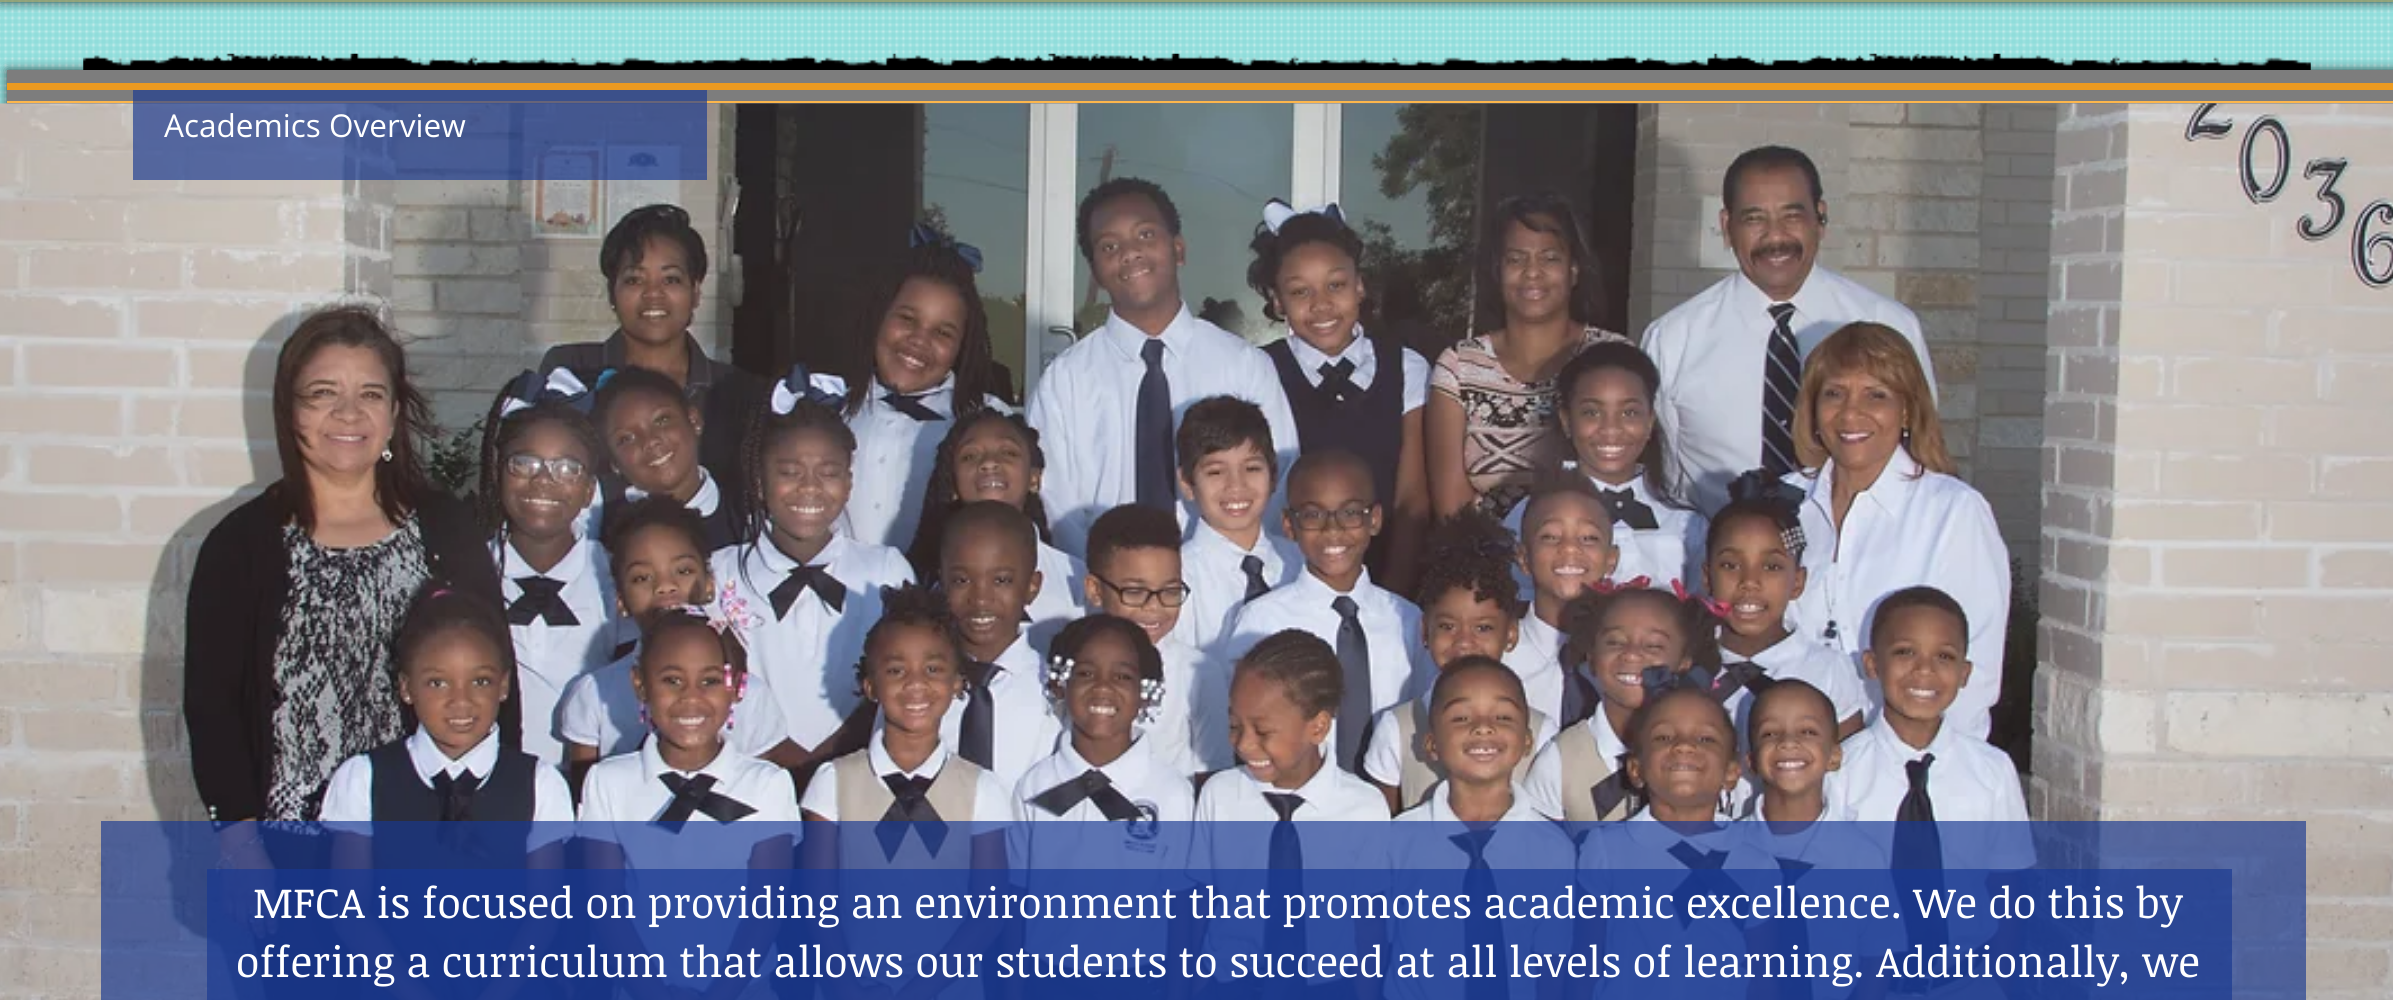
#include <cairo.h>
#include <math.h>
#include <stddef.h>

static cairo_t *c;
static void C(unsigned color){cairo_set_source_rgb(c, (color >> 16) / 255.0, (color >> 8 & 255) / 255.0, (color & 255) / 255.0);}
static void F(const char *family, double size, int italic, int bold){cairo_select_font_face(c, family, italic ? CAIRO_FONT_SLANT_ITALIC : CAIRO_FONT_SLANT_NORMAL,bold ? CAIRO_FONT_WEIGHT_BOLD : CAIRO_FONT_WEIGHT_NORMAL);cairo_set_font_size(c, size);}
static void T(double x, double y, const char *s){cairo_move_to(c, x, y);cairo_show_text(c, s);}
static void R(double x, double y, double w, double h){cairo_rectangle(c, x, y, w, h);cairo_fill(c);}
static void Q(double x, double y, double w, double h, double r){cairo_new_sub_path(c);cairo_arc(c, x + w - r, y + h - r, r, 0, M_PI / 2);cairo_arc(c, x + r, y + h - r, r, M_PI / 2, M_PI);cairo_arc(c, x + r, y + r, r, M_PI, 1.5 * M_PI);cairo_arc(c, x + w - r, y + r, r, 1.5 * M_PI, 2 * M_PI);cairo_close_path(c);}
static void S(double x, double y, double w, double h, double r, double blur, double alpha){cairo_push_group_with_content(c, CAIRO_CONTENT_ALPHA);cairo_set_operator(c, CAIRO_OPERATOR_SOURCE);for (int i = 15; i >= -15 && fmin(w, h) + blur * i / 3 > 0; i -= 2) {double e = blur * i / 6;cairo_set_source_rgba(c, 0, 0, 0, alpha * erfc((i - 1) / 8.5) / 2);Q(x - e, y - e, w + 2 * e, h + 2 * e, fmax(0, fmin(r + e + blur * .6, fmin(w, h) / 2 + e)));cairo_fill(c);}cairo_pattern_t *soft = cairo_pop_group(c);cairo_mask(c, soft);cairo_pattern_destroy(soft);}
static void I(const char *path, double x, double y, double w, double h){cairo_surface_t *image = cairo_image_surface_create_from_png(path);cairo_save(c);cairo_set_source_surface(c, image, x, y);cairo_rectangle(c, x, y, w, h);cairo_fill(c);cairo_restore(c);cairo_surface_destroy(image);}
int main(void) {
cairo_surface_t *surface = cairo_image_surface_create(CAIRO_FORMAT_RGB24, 2393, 1000);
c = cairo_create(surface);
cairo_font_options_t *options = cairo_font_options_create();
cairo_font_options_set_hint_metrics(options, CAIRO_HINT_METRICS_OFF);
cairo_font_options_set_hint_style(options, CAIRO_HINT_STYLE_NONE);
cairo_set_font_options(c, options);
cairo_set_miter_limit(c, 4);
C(0x90dddb);
cairo_paint(c);
I("1.png",0,0,2393,104);
cairo_save(c);
cairo_rectangle(c,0,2,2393,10);
cairo_clip(c);
C(0x000000);
S(0,-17,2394,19,0,5.5,.7);
cairo_restore(c);
cairo_set_source_rgba(c,0.565,0.4,0.094,0.49);
R(0,0,2393,2);
I("2.png",83,53,2228,17);
C(0x000000);
S(7,70,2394,94,0,5.5,.7);
C(0x7d7d7d);
R(7,70,2386,34);
C(0xeb9a21);
R(7,83,2386,7);
C(0xfcb64c);
R(7,101,2386,2);
I("3.png",0,103,2393,897);
cairo_set_source_rgba(c,0.094,0.22,0.565,0.65);
R(133,90,574,90);
F("Open Sans",31.5,0,0);
C(0xffffff);
T(164,137,"Academics Overview");
cairo_set_source_rgba(c,0.094,0.22,0.565,0.65);
R(101,821,2205,179);
R(207,869,2025,131);
F("Noticia Text",42.75,0,0);
C(0xffffff);
T(253,918,"MFCA is focused on providing an environment that promotes academic excellence. We do this by");
T(236,977,"offering a curriculum that allows our students to succeed at all levels of learning. Additionally, we");
cairo_surface_write_to_png(surface, "o.png");
cairo_font_options_destroy(options);
cairo_destroy(c);
cairo_surface_destroy(surface);
return 0;
}
